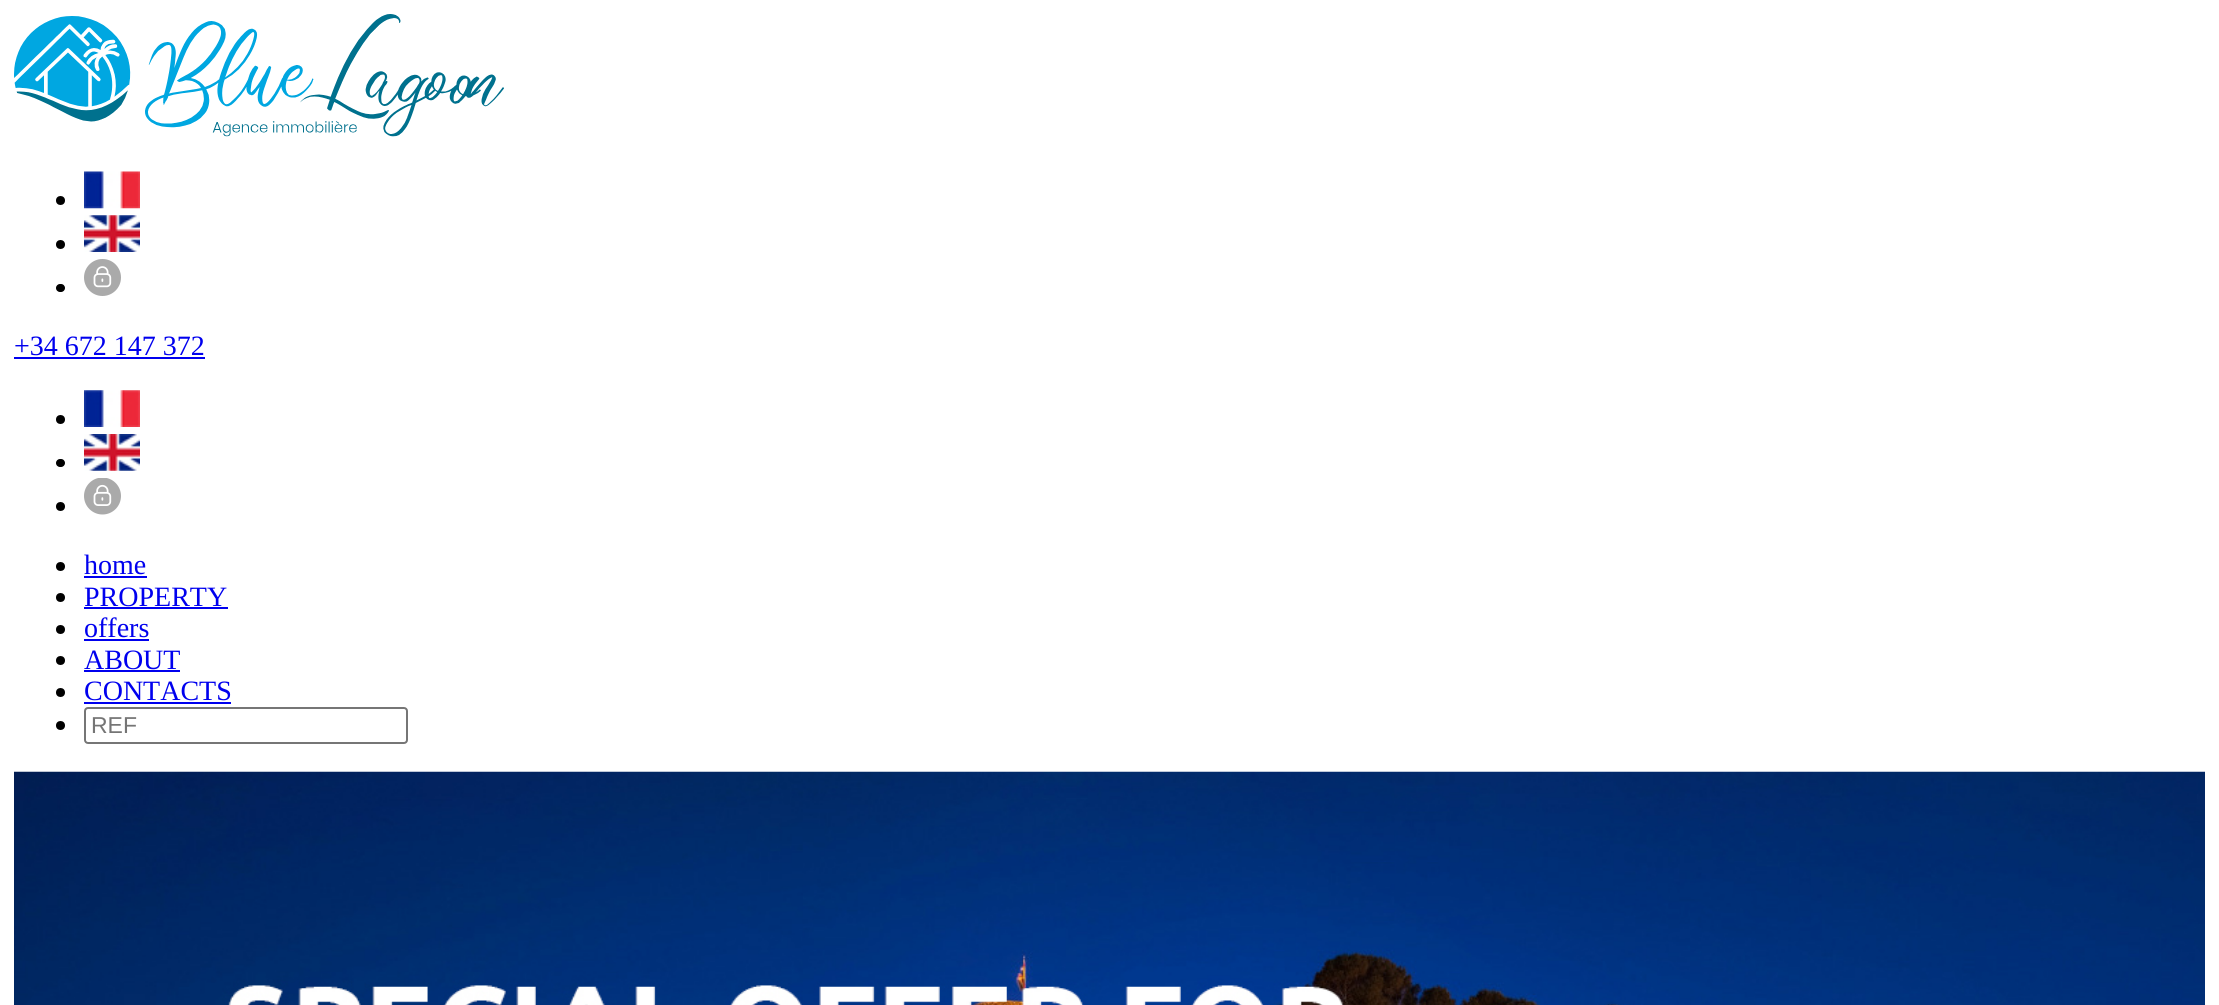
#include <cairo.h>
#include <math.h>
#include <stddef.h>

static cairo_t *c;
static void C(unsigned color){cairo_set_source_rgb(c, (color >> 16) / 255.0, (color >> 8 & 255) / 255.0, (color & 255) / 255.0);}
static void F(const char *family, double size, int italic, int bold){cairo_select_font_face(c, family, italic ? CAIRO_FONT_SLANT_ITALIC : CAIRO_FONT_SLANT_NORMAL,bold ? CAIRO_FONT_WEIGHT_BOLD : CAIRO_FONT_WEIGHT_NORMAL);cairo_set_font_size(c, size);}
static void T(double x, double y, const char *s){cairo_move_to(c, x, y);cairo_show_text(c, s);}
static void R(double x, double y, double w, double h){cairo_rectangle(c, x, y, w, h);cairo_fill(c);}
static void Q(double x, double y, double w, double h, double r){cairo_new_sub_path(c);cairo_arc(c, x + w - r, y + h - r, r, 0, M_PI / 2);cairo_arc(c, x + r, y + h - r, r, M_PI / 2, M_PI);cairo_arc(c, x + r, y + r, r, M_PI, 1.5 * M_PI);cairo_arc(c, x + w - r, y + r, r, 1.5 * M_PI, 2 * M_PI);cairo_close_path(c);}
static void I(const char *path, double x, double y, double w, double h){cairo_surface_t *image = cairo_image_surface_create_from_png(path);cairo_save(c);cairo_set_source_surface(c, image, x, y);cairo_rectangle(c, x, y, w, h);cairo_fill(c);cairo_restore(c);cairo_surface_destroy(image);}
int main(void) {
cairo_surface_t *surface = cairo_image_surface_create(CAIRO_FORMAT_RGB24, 2219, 1005);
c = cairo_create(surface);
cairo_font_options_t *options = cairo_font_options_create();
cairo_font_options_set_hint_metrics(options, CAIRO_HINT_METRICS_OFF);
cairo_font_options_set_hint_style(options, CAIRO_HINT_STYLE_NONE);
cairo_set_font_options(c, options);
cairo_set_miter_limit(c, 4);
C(0xffffff);
cairo_paint(c);
I("1.png",14,14,490,123);
C(0x000000);
cairo_arc(c,60.5,200.5,4.5,0,2 * M_PI);
cairo_fill(c);
I("2.png",84,171,56,38);
cairo_arc(c,60.5,244.5,4.5,0,2 * M_PI);
cairo_fill(c);
I("3.png",84,215,56,37);
Q(56,284,9,8,4);
cairo_fill(c);
I("4.png",84,259,37,37);
F("Liberation Serif",28,0,0);
C(0x0000ee);
T(14,355,"+34 672 147 372");
R(14,357,191,2);
C(0x000000);
cairo_new_path(c);
cairo_arc(c,60.5,419.5,4.5,0,2 * M_PI);
cairo_fill(c);
I("5.png",84,390,56,37);
Q(56,459,9,8,4);
cairo_fill(c);
I("6.png",84,434,56,37);
cairo_arc(c,60.5,506.5,4.5,0,2 * M_PI);
cairo_fill(c);
I("7.png",84,478,37,37);
cairo_arc(c,60.5,566.5,4.5,0,2 * M_PI);
cairo_fill(c);
C(0x0000ee);
T(84,574,"home");
R(84,576,63,2);
C(0x000000);
cairo_new_path(c);
cairo_arc(c,60.5,597.5,4.5,0,2 * M_PI);
cairo_fill(c);
C(0x0000ee);
T(84,606,"PROPERTY");
R(84,607,144,2);
C(0x000000);
cairo_new_path(c);
cairo_arc(c,60.5,629.5,4.5,0,2 * M_PI);
cairo_fill(c);
C(0x0000ee);
T(84,637,"offers");
R(84,639,65,2);
C(0x000000);
cairo_new_path(c);
cairo_arc(c,60.5,660.5,4.5,0,2 * M_PI);
cairo_fill(c);
C(0x0000ee);
T(84,669,"ABOUT");
R(84,670,96,2);
C(0x000000);
cairo_new_path(c);
cairo_arc(c,60.5,692.5,4.5,0,2 * M_PI);
cairo_fill(c);
C(0x0000ee);
T(84,700,"CONTACTS");
R(84,702,147,2);
C(0x000000);
cairo_new_path(c);
cairo_arc(c,60.5,725.5,4.5,0,2 * M_PI);
cairo_fill(c);
Q(85,708,322,35,3);
C(0x767676);
cairo_stroke(c);
F("Liberation Sans",23,0,0);
C(0x757575);
T(91,733,"REF");
I("8.png",14,771,2191,234);
cairo_surface_write_to_png(surface, "o.png");
cairo_font_options_destroy(options);
cairo_destroy(c);
cairo_surface_destroy(surface);
return 0;
}
